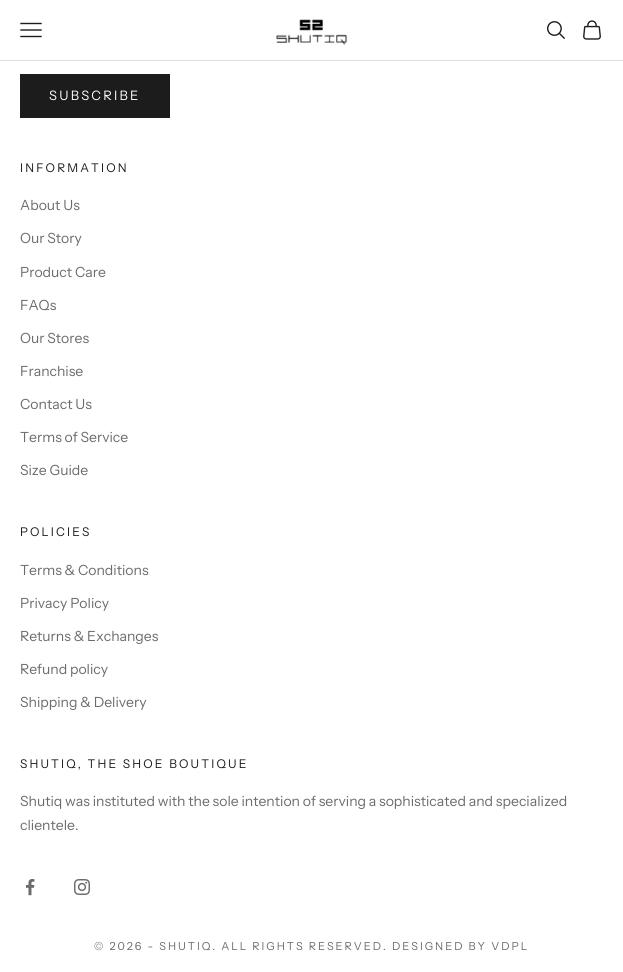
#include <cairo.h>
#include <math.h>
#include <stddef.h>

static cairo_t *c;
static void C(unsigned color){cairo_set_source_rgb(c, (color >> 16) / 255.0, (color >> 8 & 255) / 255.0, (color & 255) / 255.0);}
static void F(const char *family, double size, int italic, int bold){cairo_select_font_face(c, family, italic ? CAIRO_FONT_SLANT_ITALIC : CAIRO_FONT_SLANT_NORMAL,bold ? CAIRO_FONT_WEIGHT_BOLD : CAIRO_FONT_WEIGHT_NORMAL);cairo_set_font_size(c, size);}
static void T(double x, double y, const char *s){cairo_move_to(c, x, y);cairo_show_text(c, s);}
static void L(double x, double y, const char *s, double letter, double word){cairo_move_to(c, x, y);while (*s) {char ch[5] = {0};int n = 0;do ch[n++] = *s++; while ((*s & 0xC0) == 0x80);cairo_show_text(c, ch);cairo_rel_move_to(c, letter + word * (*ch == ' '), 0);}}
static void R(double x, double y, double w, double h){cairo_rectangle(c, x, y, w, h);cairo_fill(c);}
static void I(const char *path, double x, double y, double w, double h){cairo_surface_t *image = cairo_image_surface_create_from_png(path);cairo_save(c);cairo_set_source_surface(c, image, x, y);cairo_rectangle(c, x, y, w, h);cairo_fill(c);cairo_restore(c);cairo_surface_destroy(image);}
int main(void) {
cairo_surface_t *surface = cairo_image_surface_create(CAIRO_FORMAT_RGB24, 623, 972);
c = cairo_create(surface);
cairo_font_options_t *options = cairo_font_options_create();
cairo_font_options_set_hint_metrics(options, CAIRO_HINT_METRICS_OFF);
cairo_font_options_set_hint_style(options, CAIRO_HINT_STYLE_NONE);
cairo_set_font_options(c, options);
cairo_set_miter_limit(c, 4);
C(0xffffff);
cairo_paint(c);
C(0xdddddd);
R(0,60,623,1);
cairo_new_path(c);
cairo_move_to(c,21,36.5);
cairo_line_to(c,41,36.5);
cairo_move_to(c,21,30);
cairo_line_to(c,41,30);
cairo_move_to(c,21,23.5);
cairo_line_to(c,41,23.5);
C(0x1c1c1c);
cairo_set_line_width(c,1.4);
cairo_set_line_cap(c,CAIRO_LINE_CAP_SQUARE);
cairo_stroke(c);
I("1.png",276,19,72,26);
I("2.png",547,21,18,18);
I("3.png",583,20,18,20);
cairo_rectangle(c,20.5,74.5,149,43);
cairo_fill_preserve(c);
cairo_set_line_width(c,1);
cairo_set_line_cap(c,CAIRO_LINE_CAP_BUTT);
cairo_stroke(c);
F("Instrument Sans",13,0,0);
C(0xffffff);
L(49,100,"SUBSCRIBE",2.25,0);
F("Instrument Sans",12,0,0);
C(0x1c1c1c);
L(20,172,"INFORMATION",2.15,0);
F("Instrument Sans",14,0,0);
C(0x6b6b6b);
T(20,210,"About Us");
T(20,243,"Our Story");
T(20,277,"Product Care");
T(20,310,"FAQs");
T(20,343,"Our Stores");
T(20,376,"Franchise");
T(20,409,"Contact Us");
T(20,442,"Terms of Service");
T(20,475,"Size Guide");
F("Instrument Sans",12,0,0);
C(0x1c1c1c);
L(20,536,"POLICIES",2.15,0);
F("Instrument Sans",14,0,0);
C(0x6b6b6b);
T(20,575,"Terms & Conditions");
T(20,608,"Privacy Policy");
T(20,641,"Returns & Exchanges");
T(20,674,"Refund policy");
T(20,707,"Shipping & Delivery");
F("Instrument Sans",12,0,0);
C(0x1c1c1c);
L(20,768,"SHUTIQ, THE SHOE BOUTIQUE",2.15,0);
F("Instrument Sans",14,0,0);
C(0x6b6b6b);
T(20,806,"Shutiq was instituted with the sole intention of serving a sophisticated and specialized");
T(20,830,"clientele.");
I("4.png",26,879,9,17);
I("5.png",74,879,16,16);
F("Instrument Sans",11,0,0);
L(94,950,"© 2026 - SHUTIQ. ALL RIGHTS RESERVED. DESIGNED BY VDPL",1.98,0);
cairo_surface_write_to_png(surface, "o.png");
cairo_font_options_destroy(options);
cairo_destroy(c);
cairo_surface_destroy(surface);
return 0;
}
